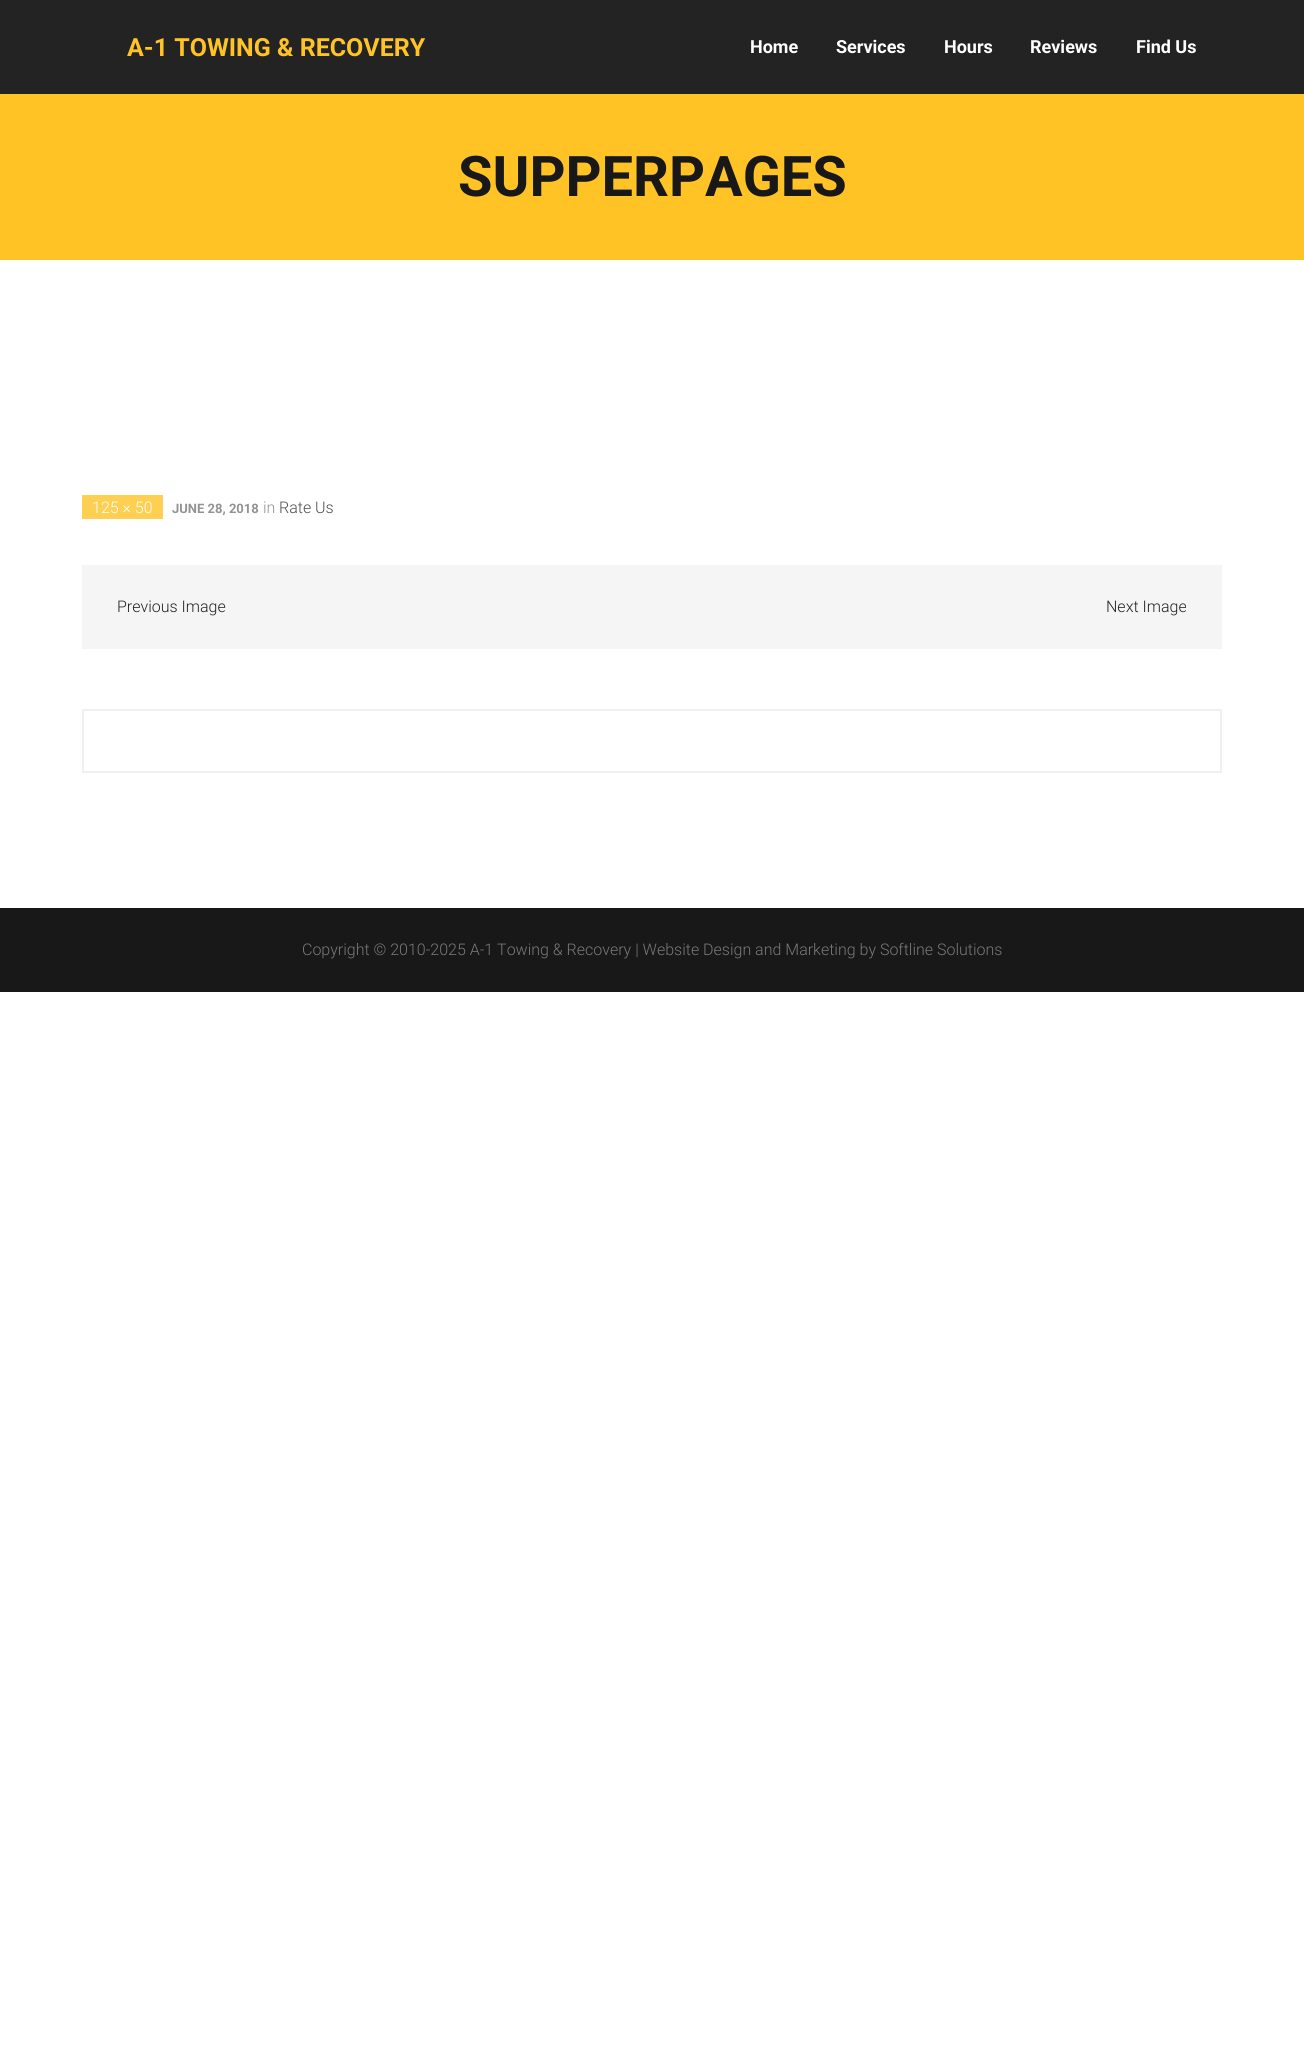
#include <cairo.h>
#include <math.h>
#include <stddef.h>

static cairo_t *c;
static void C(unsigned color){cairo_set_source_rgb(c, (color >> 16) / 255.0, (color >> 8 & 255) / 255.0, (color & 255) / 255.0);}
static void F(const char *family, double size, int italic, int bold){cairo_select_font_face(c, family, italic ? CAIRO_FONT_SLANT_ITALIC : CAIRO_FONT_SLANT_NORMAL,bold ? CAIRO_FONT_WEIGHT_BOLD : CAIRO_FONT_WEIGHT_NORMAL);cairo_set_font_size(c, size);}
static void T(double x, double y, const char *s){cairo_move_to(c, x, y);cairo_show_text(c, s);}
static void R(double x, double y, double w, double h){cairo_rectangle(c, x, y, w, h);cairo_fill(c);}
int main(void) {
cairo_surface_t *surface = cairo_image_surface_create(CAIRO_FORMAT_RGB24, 1304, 2070);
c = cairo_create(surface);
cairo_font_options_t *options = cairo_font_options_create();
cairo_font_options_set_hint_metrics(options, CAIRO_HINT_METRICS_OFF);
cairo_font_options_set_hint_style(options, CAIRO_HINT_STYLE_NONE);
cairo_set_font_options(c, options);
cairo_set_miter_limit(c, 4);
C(0xffffff);
cairo_paint(c);
C(0x232323);
R(0,0,1304,94);
F("Roboto",25,0,1);
C(0xffc326);
T(127,56,"A-1 TOWING & RECOVERY");
F("Roboto",18,0,1);
C(0xffffff);
T(750,53,"Home");
T(836,53,"Services");
T(944,53,"Hours");
T(1030,53,"Reviews");
T(1136,53,"Find Us");
C(0xffc326);
R(0,94,1304,166);
F("Roboto",56,0,1);
C(0x181818);
T(458,196,"SUPPERPAGES");
C(0xffcf51);
R(85,498,75,18);
cairo_new_path(c);
cairo_move_to(c,83.5,496.5);
cairo_line_to(c,161.5,496.5);
cairo_line_to(c,161.5,517.5);
cairo_line_to(c,83.5,517.5);
cairo_close_path(c);
cairo_set_line_width(c,3);
cairo_stroke(c);
F("Roboto Light",16,0,0);
C(0xffffff);
T(92,513,"125 × 50");
F("Roboto",13,0,1);
C(0x939393);
T(172,513,"JUNE 28, 2018");
F("Roboto Light",16,0,0);
T(263,513,"in");
C(0x4f4f4f);
T(279,513,"Rate Us");
C(0xf5f5f5);
R(82,565,1140,84);
C(0x232323);
T(117,612,"Previous Image");
T(1106,612,"Next Image");
cairo_rectangle(c,83,710,1138,62);
C(0xf0f0f0);
cairo_set_line_width(c,2);
cairo_stroke(c);
C(0x181818);
R(0,908,1304,84);
C(0x787878);
T(302,955,"Copyright © 2010-2025 A-1 Towing & Recovery | Website Design and Marketing by Softline Solutions");
cairo_surface_write_to_png(surface, "o.png");
cairo_font_options_destroy(options);
cairo_destroy(c);
cairo_surface_destroy(surface);
return 0;
}
